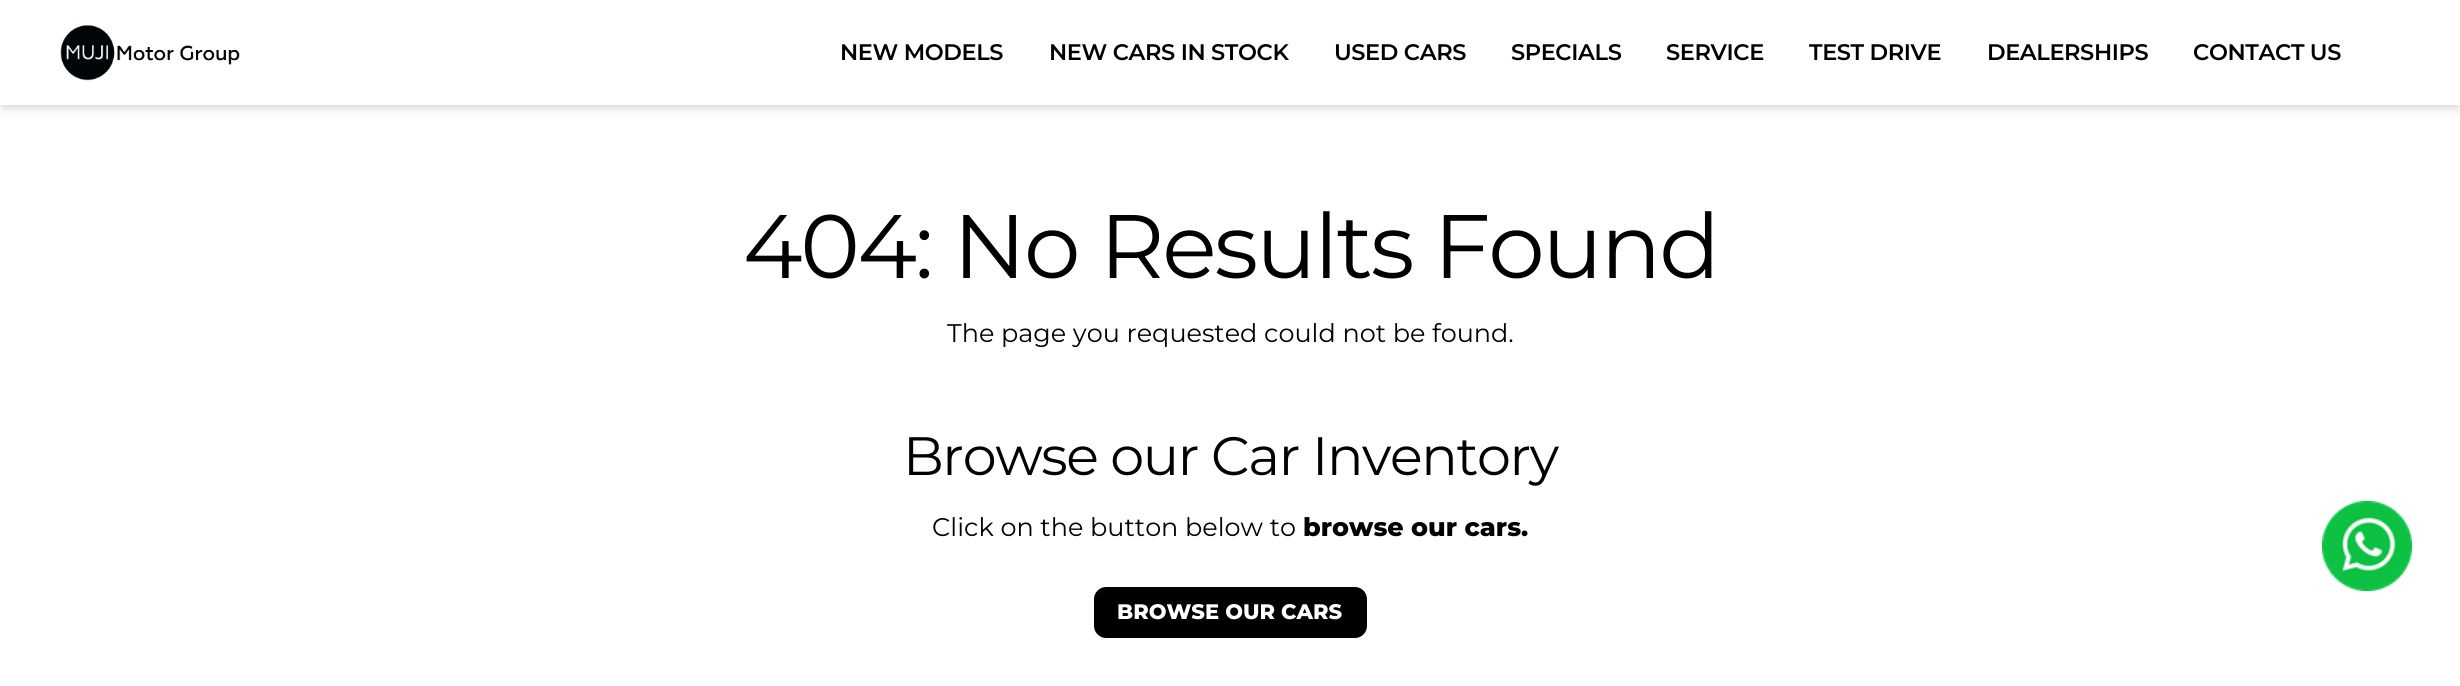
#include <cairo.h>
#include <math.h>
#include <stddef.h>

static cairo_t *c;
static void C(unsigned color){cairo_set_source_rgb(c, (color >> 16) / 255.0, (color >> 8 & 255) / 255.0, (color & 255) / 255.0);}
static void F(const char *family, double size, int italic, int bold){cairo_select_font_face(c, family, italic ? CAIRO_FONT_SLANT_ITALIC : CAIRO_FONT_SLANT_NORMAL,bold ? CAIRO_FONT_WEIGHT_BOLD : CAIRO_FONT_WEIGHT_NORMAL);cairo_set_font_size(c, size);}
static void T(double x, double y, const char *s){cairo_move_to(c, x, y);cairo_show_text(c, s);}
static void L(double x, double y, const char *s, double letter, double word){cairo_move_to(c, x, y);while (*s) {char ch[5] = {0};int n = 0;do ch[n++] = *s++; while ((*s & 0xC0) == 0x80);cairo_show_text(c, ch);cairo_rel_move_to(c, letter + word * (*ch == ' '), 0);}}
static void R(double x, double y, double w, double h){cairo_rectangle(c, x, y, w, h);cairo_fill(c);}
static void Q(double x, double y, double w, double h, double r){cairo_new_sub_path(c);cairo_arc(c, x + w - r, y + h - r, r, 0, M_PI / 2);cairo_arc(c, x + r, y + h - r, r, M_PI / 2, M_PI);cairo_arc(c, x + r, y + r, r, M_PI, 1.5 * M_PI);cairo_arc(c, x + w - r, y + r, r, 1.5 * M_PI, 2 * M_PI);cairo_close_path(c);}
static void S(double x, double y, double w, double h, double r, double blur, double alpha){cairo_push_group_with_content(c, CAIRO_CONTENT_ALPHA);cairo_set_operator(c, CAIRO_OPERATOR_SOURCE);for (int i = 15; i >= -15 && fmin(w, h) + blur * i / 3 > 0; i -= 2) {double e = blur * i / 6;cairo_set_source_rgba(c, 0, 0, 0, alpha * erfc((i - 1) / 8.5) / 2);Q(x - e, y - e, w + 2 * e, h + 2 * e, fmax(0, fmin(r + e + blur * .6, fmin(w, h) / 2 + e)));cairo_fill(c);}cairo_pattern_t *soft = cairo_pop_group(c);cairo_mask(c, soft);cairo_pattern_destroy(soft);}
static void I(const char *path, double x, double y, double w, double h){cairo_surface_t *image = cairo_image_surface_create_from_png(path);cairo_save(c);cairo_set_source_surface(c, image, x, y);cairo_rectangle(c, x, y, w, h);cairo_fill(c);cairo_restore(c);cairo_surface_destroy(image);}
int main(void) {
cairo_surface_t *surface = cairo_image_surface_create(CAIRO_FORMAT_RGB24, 2460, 686);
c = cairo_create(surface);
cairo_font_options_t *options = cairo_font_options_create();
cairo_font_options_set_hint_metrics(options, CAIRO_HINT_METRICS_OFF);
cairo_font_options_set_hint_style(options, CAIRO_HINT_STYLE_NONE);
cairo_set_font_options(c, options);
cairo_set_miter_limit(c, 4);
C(0xffffff);
cairo_paint(c);
C(0x000000);
S(3,6,2454,99,0,3,.1);
S(2,8,2457,102,0,4.5,.1);
C(0xffffff);
R(0,1,2460,104);
I("1.png",60,25,180,56);
F("Montserrat SemiBold",22.5,0,0);
C(0x000000);
L(840,60,"NEW MODELS",-.4,0);
L(1049,60,"NEW CARS IN STOCK",-.4,0);
L(1334,60,"USED CARS",-.4,0);
L(1511,60,"SPECIALS",-.4,0);
L(1666,60,"SERVICE",-.4,0);
L(1809,60,"TEST DRIVE",-.4,0);
L(1987,60,"DEALERSHIPS",-.4,0);
L(2193,60,"CONTACT US",-.4,0);
F("Montserrat",90,0,0);
L(743,278,"404: No Results Found",-2.25,0);
F("Montserrat",25.5,0,0);
T(947,342,"The page you requested could not be found.");
F("Montserrat",54,0,0);
L(903,475,"Browse our Car Inventory",-1.35,0);
F("Montserrat",25.5,0,0);
T(932,536,"Click on the button below to");
F("Montserrat ExtraBold",25.5,0,0);
T(1303,536,"browse our cars.");
cairo_new_path(c);
cairo_move_to(c,1106,587);
cairo_line_to(c,1220,587);
cairo_line_to(c,1220,638);
cairo_line_to(c,1106,638);
cairo_curve_to(c,1099.5,638,1094,632.5,1094,626);
cairo_line_to(c,1094,599);
cairo_curve_to(c,1094,592.5,1099.5,587,1106,587);
cairo_close_path(c);
cairo_fill(c);
cairo_new_path(c);
cairo_move_to(c,1220,587);
cairo_line_to(c,1355,587);
cairo_curve_to(c,1361.5,587,1367,592.5,1367,599);
cairo_line_to(c,1367,626);
cairo_curve_to(c,1367,632.5,1361.5,638,1355,638);
cairo_line_to(c,1220,638);
cairo_close_path(c);
cairo_fill(c);
F("Montserrat ExtraBold",21,0,0);
C(0xffffff);
T(1117,619,"BROWSE OUR CARS");
I("2.png",2322,501,90,90);
cairo_surface_write_to_png(surface, "o.png");
cairo_font_options_destroy(options);
cairo_destroy(c);
cairo_surface_destroy(surface);
return 0;
}
